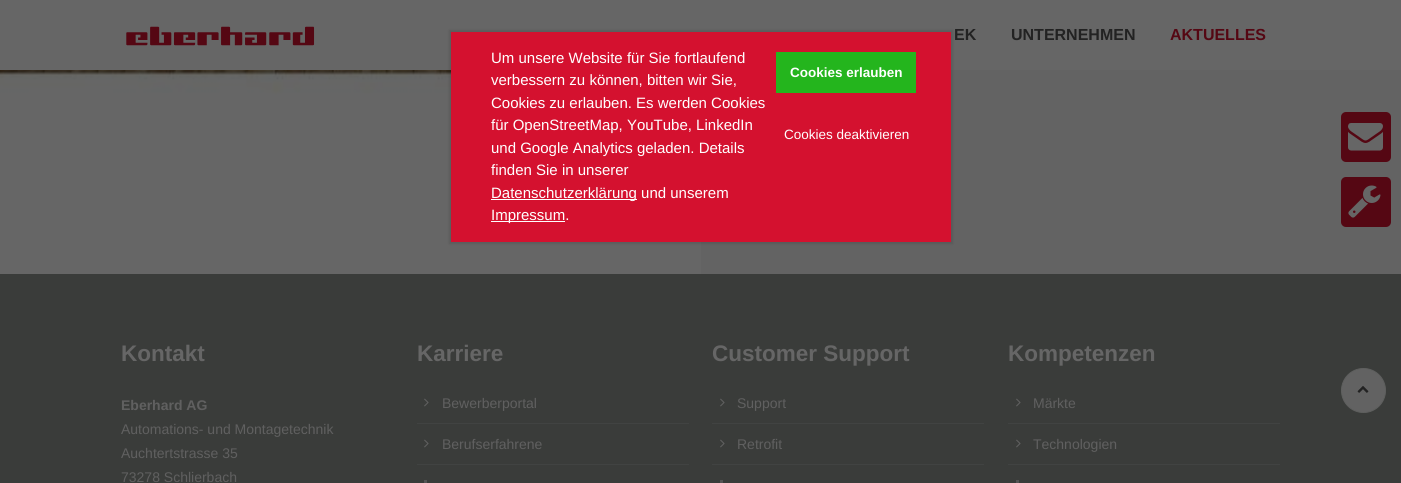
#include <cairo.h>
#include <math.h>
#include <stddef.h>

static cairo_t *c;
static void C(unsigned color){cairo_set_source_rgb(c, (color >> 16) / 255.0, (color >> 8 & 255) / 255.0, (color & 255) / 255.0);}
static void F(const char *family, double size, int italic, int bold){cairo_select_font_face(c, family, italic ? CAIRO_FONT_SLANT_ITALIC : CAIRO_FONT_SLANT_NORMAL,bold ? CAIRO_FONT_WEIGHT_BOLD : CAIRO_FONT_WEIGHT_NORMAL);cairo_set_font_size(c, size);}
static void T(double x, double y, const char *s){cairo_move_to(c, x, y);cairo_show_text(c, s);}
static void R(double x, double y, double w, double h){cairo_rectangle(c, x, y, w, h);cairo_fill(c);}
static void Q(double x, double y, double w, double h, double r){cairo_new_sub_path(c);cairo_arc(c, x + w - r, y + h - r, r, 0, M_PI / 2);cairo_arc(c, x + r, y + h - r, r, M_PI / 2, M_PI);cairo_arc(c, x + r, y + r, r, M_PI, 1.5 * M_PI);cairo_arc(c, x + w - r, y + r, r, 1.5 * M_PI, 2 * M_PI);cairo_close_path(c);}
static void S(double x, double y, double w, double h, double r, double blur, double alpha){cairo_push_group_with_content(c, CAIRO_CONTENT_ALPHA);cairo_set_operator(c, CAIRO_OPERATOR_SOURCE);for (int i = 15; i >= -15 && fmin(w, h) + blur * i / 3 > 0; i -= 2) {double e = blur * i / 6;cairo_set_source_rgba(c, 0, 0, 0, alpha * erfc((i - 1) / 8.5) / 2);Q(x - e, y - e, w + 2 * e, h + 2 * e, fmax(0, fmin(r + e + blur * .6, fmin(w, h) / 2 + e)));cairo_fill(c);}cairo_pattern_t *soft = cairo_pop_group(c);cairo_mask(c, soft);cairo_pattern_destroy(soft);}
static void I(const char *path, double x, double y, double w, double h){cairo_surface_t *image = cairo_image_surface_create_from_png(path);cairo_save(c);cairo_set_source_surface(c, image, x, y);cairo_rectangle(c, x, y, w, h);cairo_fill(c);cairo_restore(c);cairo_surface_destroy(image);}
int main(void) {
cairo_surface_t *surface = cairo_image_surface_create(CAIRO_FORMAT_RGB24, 1401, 483);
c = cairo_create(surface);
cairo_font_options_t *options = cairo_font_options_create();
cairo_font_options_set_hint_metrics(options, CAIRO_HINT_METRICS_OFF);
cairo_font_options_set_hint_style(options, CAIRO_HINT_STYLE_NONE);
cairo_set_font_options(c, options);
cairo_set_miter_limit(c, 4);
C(0x3a3c3a);
cairo_paint(c);
C(0x666666);
R(0,0,1401,70);
I("1.png",126,26,189,20);
F("Liberation Sans",16,0,1);
C(0x222222);
T(954,40,"EK");
T(1011,40,"UNTERNEHMEN");
C(0x550713);
T(1170,40,"AKTUELLES");
C(0x636363);
R(701,70,700,204);
I("4.png",0,70,701,204);
C(0x000000);
S(449,30,504,214,0,1,.1);
C(0xd4112f);
R(451,32,500,210);
F("Liberation Sans",15,0,0);
C(0xffffff);
T(491,63,"Um unsere Website für Sie fortlaufend");
T(491,85,"verbessern zu können, bitten wir Sie,");
T(491,108,"Cookies zu erlauben. Es werden Cookies");
T(491,130,"für OpenStreetMap, YouTube, LinkedIn");
T(491,153,"und Google Analytics geladen. Details");
T(491,175,"finden Sie in unserer");
R(491,199,146,1);
T(491,198,"Datenschutzerklärung und unserem");
R(491,221,74,1);
T(491,220,"Impressum.");
C(0x24b51d);
R(776,52,140,41);
F("Liberation Sans",13.5,0,1);
C(0xffffff);
T(790,77,"Cookies erlauben");
F("Liberation Sans",13.5,0,0);
T(784,139,"Cookies deaktivieren");
C(0x550713);
Q(1341,112,50,50,5);
cairo_fill(c);
I("2.png",1348,123,35,28);
Q(1341,177,50,50,5);
cairo_fill(c);
I("3.png",1348,185,33,33);
F("Liberation Sans",22.5,0,1);
C(0x666666);
T(121,361,"Kontakt");
F("Liberation Sans",14,0,1);
C(0x606060);
T(121,410,"Eberhard AG");
F("Liberation Sans",14,0,0);
T(121,434,"Automations- und Montagetechnik");
T(121,458,"Auchtertstrasse 35");
T(121,482,"73278 Schlierbach");
F("Liberation Sans",22.5,0,1);
C(0x666666);
T(417,361,"Karriere");
I("5.png",424,398,5,9);
F("Liberation Sans",14,0,0);
C(0x606060);
T(442,408,"Bewerberportal");
C(0x414342);
R(417,423,272,1);
I("5.png",424,439,5,9);
C(0x606060);
T(442,449,"Berufserfahrene");
C(0x414342);
R(417,464,272,1);
C(0x545454);
R(424,480,3,3);
F("Liberation Sans",22.5,0,1);
C(0x666666);
T(712,361,"Customer Support");
I("5.png",720,398,5,9);
F("Liberation Sans",14,0,0);
C(0x606060);
T(737,408,"Support");
C(0x414342);
R(712,423,272,1);
I("5.png",720,439,5,9);
C(0x606060);
T(737,449,"Retrofit");
C(0x414342);
R(712,464,272,1);
C(0x545454);
R(720,480,3,3);
F("Liberation Sans",22.5,0,1);
C(0x666666);
T(1008,361,"Kompetenzen");
I("5.png",1016,398,5,9);
F("Liberation Sans",14,0,0);
C(0x606060);
T(1033,408,"Märkte");
C(0x414342);
R(1008,423,272,1);
I("5.png",1016,439,5,9);
C(0x606060);
T(1033,449,"Technologien");
C(0x414342);
R(1008,464,272,1);
C(0x545454);
R(1016,480,3,3);
C(0x626262);
cairo_new_path(c);
cairo_arc(c,1363.5,390.5,22,0,2 * M_PI);
cairo_fill_preserve(c);
C(0x5e5f5e);
cairo_set_line_width(c,1);
cairo_stroke(c);
I("6.png",1357,386,12,7);
cairo_surface_write_to_png(surface, "o.png");
cairo_font_options_destroy(options);
cairo_destroy(c);
cairo_surface_destroy(surface);
return 0;
}
